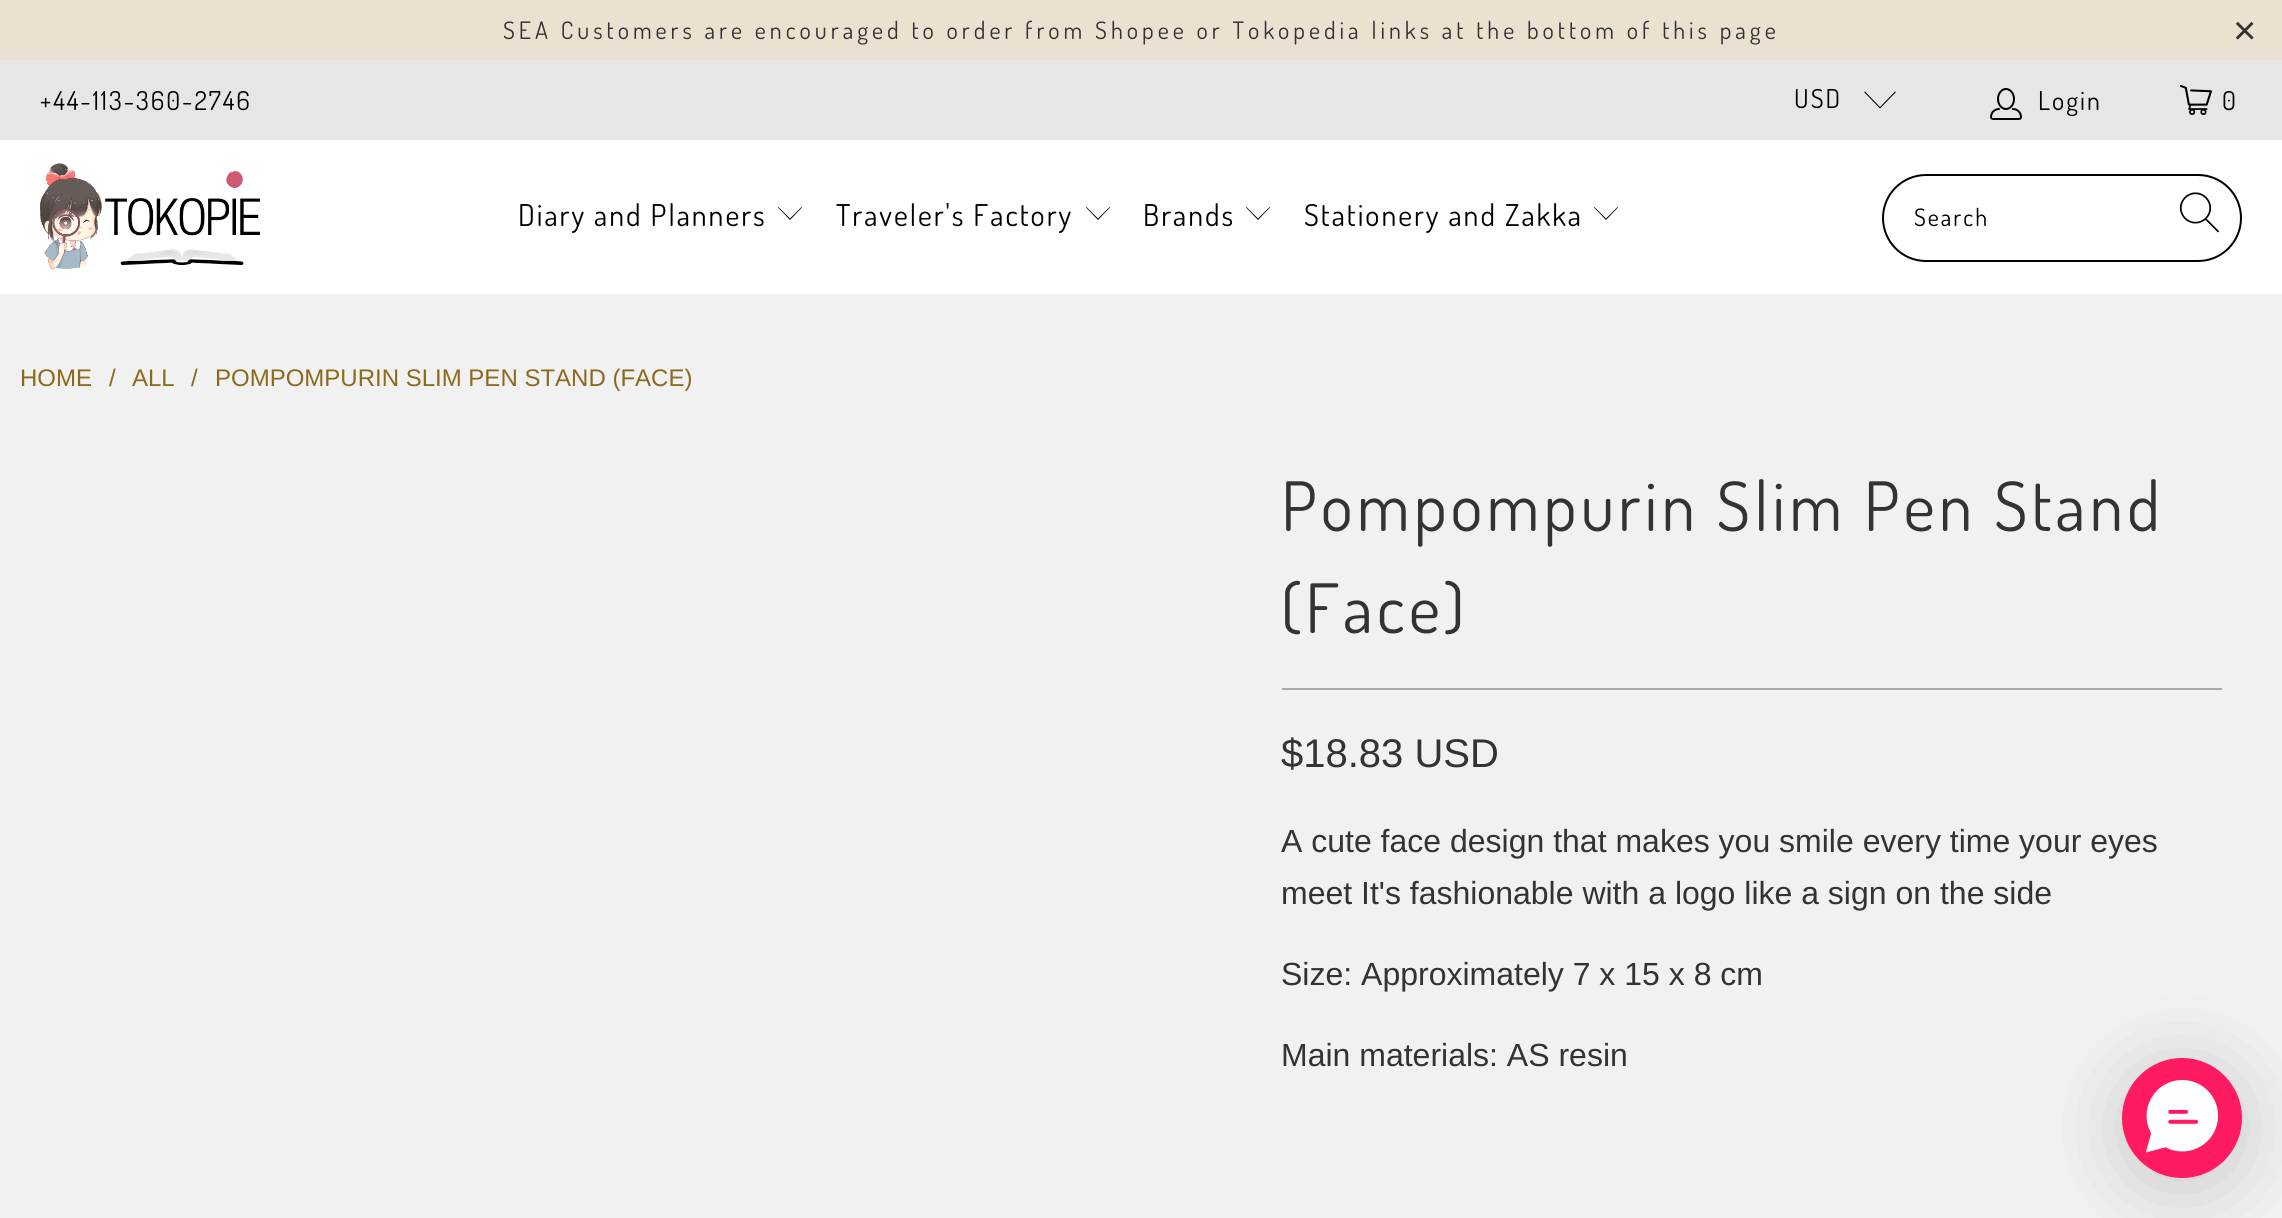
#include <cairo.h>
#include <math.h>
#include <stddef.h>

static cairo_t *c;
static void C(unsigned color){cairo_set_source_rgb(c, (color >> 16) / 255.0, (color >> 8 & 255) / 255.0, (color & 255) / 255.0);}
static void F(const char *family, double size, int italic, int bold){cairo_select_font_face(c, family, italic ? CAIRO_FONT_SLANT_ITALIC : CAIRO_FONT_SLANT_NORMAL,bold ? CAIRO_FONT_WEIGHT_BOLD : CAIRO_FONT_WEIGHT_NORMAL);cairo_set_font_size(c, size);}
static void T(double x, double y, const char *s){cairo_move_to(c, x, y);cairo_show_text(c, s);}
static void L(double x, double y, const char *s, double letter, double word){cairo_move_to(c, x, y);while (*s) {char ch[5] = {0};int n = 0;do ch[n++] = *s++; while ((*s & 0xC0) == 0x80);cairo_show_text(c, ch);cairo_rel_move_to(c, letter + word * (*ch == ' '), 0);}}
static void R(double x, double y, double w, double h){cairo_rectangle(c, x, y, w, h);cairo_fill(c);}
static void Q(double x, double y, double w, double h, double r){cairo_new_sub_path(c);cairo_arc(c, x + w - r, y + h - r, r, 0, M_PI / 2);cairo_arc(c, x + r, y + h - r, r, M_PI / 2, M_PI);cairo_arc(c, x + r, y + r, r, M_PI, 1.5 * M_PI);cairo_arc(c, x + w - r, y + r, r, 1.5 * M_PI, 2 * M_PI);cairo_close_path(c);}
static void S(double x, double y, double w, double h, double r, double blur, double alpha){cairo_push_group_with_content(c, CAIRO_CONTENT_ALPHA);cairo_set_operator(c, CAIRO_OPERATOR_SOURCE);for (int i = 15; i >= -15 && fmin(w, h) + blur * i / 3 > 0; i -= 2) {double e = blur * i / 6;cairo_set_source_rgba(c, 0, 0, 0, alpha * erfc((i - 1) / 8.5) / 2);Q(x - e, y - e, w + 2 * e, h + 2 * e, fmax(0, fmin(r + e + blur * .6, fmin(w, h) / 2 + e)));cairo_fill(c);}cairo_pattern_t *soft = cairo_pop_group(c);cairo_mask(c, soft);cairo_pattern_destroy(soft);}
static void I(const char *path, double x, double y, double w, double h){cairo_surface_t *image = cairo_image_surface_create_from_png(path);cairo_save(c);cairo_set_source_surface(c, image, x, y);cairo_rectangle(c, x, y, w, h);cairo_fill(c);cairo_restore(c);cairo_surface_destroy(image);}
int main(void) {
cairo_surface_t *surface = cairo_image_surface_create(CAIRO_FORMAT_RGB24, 2282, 1218);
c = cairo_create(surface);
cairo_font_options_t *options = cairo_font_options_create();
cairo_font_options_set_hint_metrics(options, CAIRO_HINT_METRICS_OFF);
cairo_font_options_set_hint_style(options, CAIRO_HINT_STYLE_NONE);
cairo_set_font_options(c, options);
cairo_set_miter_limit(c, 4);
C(0xf1f1f1);
cairo_paint(c);
C(0xeae1d1);
R(0,0,2282,60);
F("Dosis",24,0,0);
C(0x333333);
L(503,39,"SEA Customers are encouraged to order from Shopee or Tokopedia links at the bottom of this page",4,0);
F("Liberation Sans",40,0,0);
L(2233,44,"×",4,0);
C(0xe6e6e6);
R(0,60,2282,80);
F("Dosis",26,0,0);
C(0x000000);
L(40,110,"+44-113-360-2746",2,0);
L(1794,108,"USD",2,0);
cairo_new_path(c);
cairo_move_to(c,1880,108.5);
cairo_line_to(c,1864,92);
cairo_line_to(c,1865,91.5);
cairo_line_to(c,1880,107);
cairo_line_to(c,1895,91.5);
cairo_line_to(c,1896,92);
cairo_close_path(c);
cairo_fill(c);
I("1.png",1990,88,32,32);
L(2038,110,"Login",2,0);
I("2.png",2180,85,32,30);
L(2222,110,"0",2,0);
C(0xffffff);
R(0,140,2282,154);
I("3.png",40,163,220,107);
F("Dosis",30,0,0);
C(0x000000);
L(518,226,"Diary and Planners",2,0);
cairo_new_path(c);
cairo_move_to(c,790,220);
cairo_line_to(c,778,207.5);
cairo_line_to(c,778.5,207);
cairo_line_to(c,790,218.5);
cairo_line_to(c,801.5,207);
cairo_line_to(c,802,207.5);
cairo_close_path(c);
cairo_fill(c);
L(836,226,"Traveler's Factory",2,0);
cairo_new_path(c);
cairo_move_to(c,1098,220);
cairo_line_to(c,1086,207.5);
cairo_line_to(c,1086.5,207);
cairo_line_to(c,1098,218.5);
cairo_line_to(c,1109.5,207);
cairo_line_to(c,1110,207.5);
cairo_close_path(c);
cairo_fill(c);
L(1143,226,"Brands",2,0);
cairo_new_path(c);
cairo_move_to(c,1258,220);
cairo_line_to(c,1246,207.5);
cairo_line_to(c,1246.5,207);
cairo_line_to(c,1258,218.5);
cairo_line_to(c,1269.5,207);
cairo_line_to(c,1270,207.5);
cairo_close_path(c);
cairo_fill(c);
L(1304,226,"Stationery and Zakka",2,0);
cairo_new_path(c);
cairo_move_to(c,1606,220);
cairo_line_to(c,1594,207.5);
cairo_line_to(c,1594.5,207);
cairo_line_to(c,1606,218.5);
cairo_line_to(c,1617.5,207);
cairo_line_to(c,1618,207.5);
cairo_close_path(c);
cairo_fill(c);
Q(1883,175,358,86,43);
cairo_stroke(c);
F("Dosis",24,0,0);
L(1914,226,"Search",2,0);
I("4.png",2179,192,41,41);
F("Liberation Sans",24,0,0);
C(0x8b6a1b);
T(20,386,"HOME");
T(109,386,"/");
T(132,386,"ALL");
T(191,386,"/");
T(215,386,"POMPOMPURIN SLIM PEN STAND (FACE)");
F("Dosis",68,0,0);
C(0x333333);
L(1281,531,"Pompompurin Slim Pen Stand",4,0);
L(1281,633,"(Face)",4,0);
C(0xaaaaaa);
R(1282,688,940,2);
F("Liberation Sans",40,0,0);
C(0x333333);
T(1281,767,"$18.83 USD");
F("Liberation Sans",32,0,0);
T(1281,852,"A cute face design that makes you smile every time your eyes");
T(1281,904,"meet It's fashionable with a logo like a sign on the side");
T(1281,985,"Size: Approximately 7 x 15 x 8 cm");
T(1281,1066,"Main materials: AS resin");
C(0x000000);
S(2122,1068,120,120,60,40,.16);
C(0xff1a62);
cairo_arc(c,2182,1118,60,0,2 * M_PI);
cairo_fill(c);
I("5.png",2146,1080,73,73);
cairo_surface_write_to_png(surface, "o.png");
cairo_font_options_destroy(options);
cairo_destroy(c);
cairo_surface_destroy(surface);
return 0;
}
